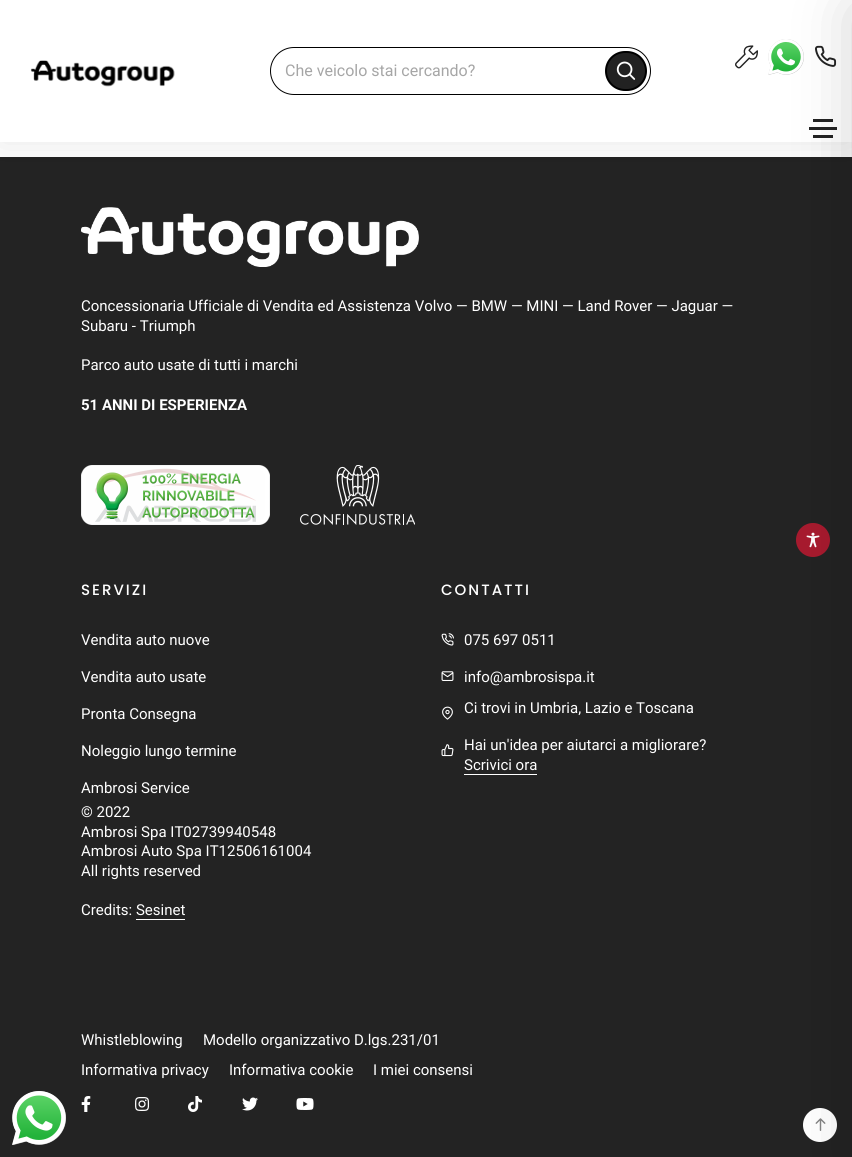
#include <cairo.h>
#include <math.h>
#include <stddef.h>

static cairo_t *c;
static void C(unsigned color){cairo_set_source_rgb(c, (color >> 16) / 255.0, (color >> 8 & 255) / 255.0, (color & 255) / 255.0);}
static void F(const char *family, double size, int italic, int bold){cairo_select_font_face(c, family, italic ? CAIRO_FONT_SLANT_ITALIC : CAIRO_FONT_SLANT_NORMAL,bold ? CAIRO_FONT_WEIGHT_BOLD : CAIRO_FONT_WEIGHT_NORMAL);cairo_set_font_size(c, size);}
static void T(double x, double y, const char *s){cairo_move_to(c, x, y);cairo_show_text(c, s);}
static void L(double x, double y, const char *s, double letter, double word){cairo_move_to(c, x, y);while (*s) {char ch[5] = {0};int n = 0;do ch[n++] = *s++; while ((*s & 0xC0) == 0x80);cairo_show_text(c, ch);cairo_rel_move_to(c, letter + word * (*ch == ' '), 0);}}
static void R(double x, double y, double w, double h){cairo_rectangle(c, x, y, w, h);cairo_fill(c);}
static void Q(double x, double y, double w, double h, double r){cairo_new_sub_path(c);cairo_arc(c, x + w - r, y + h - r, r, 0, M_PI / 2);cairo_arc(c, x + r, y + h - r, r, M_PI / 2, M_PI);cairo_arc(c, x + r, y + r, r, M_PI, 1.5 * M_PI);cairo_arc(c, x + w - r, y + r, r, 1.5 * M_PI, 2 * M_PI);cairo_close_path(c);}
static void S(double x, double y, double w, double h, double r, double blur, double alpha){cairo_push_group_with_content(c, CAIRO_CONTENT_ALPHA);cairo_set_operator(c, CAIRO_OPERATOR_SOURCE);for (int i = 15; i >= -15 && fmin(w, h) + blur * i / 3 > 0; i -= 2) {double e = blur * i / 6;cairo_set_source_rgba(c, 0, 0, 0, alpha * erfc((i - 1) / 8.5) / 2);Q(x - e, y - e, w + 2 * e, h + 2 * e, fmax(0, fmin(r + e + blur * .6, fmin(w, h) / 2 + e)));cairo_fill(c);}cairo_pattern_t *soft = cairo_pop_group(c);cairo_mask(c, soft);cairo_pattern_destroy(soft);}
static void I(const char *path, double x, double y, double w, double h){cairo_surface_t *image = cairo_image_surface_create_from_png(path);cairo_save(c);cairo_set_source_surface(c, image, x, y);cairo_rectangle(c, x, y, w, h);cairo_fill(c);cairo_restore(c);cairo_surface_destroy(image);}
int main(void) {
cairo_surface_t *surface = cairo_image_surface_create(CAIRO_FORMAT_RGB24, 852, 1157);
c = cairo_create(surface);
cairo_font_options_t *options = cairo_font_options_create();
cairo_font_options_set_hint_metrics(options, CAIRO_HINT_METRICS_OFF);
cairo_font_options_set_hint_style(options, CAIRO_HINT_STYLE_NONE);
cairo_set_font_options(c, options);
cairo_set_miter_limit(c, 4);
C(0xffffff);
cairo_paint(c);
C(0x232323);
R(0,157,852,1000);
C(0x000000);
S(0,0,852,142,0,17.5,.1);
C(0xffffff);
R(0,0,852,142);
I("1.png",30,60,145,27);
Q(270.5,47.5,380,47,23.5);
C(0x000000);
cairo_set_line_width(c,1);
cairo_stroke(c);
F("Roboto",16,0,0);
C(0xa6a6a6);
T(285,76,"Che veicolo stai cercando?");
C(0x222222);
Q(606,52,40,38,19);
cairo_fill_preserve(c);
C(0x000000);
cairo_set_line_width(c,2);
cairo_stroke(c);
I("2.png",616,61,20,19);
I("3.png",735,45,23,24);
I("4.png",768,39,36,36);
I("5.png",815,45,22,22);
C(0x232323);
R(813,119,20,3);
R(809,127,28,3);
R(813,135,20,3);
C(0xa71a2e);
cairo_arc(c,813,540,17,0,2 * M_PI);
cairo_fill(c);
I("18.png",806,532,14,16);
C(0xffffff);
cairo_arc(c,820,1125,17,0,2 * M_PI);
cairo_fill(c);
I("20.png",815,1118,11,13);
C(0x000000);
S(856,10,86,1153,0,30,.2);
I("6.png",81,207,338,60);
F("Roboto",15,0,0);
C(0xffffff);
T(81,311,"Concessionaria Ufficiale di Vendita ed Assistenza Volvo — BMW — MINI — Land Rover — Jaguar —");
T(81,331,"Subaru - Triumph");
T(81,370,"Parco auto usate di tutti i marchi");
F("Roboto",15,0,1);
T(81,410,"51 ANNI DI ESPERIENZA");
I("7.png",81,465,189,60);
I("8.png",300,465,115,60);
F("Poppins Medium",15,0,0);
L(81,595,"SERVIZI",2,0);
F("Roboto",15,0,0);
T(81,645,"Vendita auto nuove");
T(81,682,"Vendita auto usate");
T(81,719,"Pronta Consegna");
T(81,756,"Noleggio lungo termine");
T(81,793,"Ambrosi Service");
F("Poppins Medium",15,0,0);
L(441,595,"CONTATTI",2,0);
I("9.png",441,633,13,13);
F("Roboto",15,0,0);
T(464,645,"075 697 0511");
I("10.png",441,671,13,10);
T(464,682,"info@ambrosispa.it");
I("11.png",442,706,11,14);
T(464,713,"Ci trovi in Umbria, Lazio e Toscana");
I("12.png",441,744,13,13);
T(464,750,"Hai un'idea per aiutarci a migliorare?");
T(464,770,"Scrivici ora");
R(464,774,73,1);
T(81,817,"© 2022");
T(81,837,"Ambrosi Spa IT02739940548");
T(81,856,"Ambrosi Auto Spa IT12506161004");
T(81,876,"All rights reserved");
T(81,915,"Credits: Sesinet");
R(136,919,49,1);
T(81,1045,"Whistleblowing");
T(203,1045,"Modello organizzativo D.lgs.231/01");
T(81,1075,"Informativa privacy");
T(229,1075,"Informativa cookie");
T(373,1075,"I miei consensi");
I("13.png",81,1096,10,16);
I("14.png",135,1097,15,14);
I("15.png",188,1096,14,16);
I("16.png",242,1097,16,14);
I("17.png",296,1098,18,12);
I("19.png",12,1091,54,54);
cairo_surface_write_to_png(surface, "o.png");
cairo_font_options_destroy(options);
cairo_destroy(c);
cairo_surface_destroy(surface);
return 0;
}
